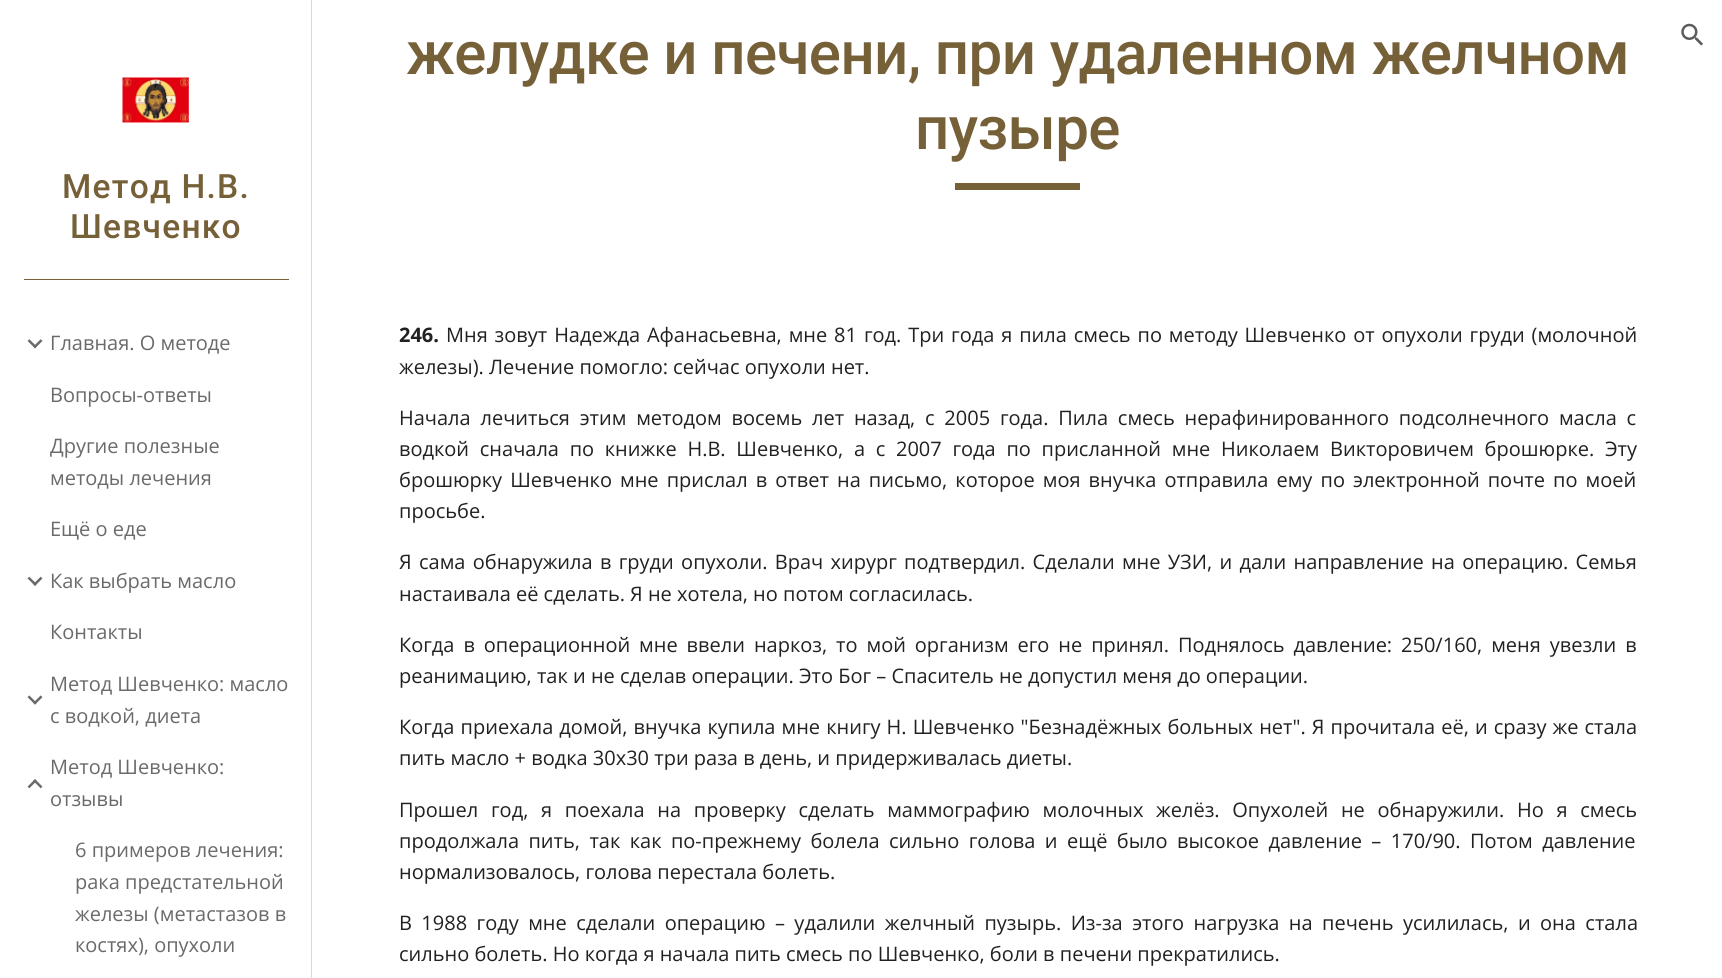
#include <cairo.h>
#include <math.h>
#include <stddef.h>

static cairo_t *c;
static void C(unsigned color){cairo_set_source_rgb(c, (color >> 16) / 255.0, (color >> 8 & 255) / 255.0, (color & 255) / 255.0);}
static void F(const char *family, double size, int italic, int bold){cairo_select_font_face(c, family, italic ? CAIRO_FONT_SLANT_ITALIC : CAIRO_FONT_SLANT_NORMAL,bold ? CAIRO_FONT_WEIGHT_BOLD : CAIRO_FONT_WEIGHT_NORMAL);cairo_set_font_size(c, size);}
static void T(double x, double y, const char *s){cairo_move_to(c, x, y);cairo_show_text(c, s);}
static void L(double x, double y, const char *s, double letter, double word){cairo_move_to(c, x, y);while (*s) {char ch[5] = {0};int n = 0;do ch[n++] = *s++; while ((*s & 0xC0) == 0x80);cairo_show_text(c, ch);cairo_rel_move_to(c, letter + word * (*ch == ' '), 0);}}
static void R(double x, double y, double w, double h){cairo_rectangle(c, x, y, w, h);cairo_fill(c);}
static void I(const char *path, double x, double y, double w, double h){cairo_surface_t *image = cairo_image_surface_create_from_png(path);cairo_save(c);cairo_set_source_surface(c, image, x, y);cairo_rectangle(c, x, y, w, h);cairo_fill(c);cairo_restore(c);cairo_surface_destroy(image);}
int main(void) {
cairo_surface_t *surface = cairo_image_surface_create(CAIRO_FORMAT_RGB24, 1722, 978);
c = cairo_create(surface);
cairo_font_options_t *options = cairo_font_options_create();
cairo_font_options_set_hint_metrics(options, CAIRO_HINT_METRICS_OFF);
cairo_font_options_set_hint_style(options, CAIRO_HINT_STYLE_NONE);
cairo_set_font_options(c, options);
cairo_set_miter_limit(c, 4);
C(0xffffff);
cairo_paint(c);
I("1.png",1681,23,22,23);
C(0xd9d9d9);
R(311,0,1,978);
I("2.png",122,77,67,46);
F("Roboto Medium",33.5,0,0);
C(0x766038);
L(62,198,"Метод Н.В.",1.25,0);
L(70,238,"Шевченко",1.25,0);
R(24,279,265,1);
I("3.png",27,339,16,10);
F("Open Sans",20,0,0);
C(0x6a6a6a);
T(50,350,"Главная. О методе");
T(50,402,"Вопросы-ответы");
T(50,453,"Другие полезные");
T(50,485,"методы лечения");
T(50,536,"Ещё о еде");
I("4.png",27,576,16,10);
T(50,588,"Как выбрать масло");
T(50,639,"Контакты");
I("5.png",27,695,16,10);
T(50,691,"Метод Шевченко: масло");
T(50,723,"с водкой, диета");
I("6.png",27,779,16,10);
T(50,774,"Метод Шевченко:");
T(50,806,"отзывы");
T(75,857,"6 примеров лечения:");
T(75,889,"рака предстательной");
T(75,921,"железы (метастазов в");
T(75,952,"костях), опухоли");
F("Roboto Medium",60,0,0);
C(0x766038);
L(406,74,"желудке и печени, при удаленном желчном",-.6,0);
L(915,149,"пузыре",-.6,0);
R(955,183,125,7);
F("Open Sans",20,0,1);
C(0x212121);
T(399,342,"246.");
F("Open Sans",20,0,0);
L(446,342,"Мня зовут Надежда Афанасьевна, мне 81 год. Три года я пила смесь по методу Шевченко от опухоли груди (молочной",0,1.7);
T(399,374,"железы). Лечение помогло: сейчас опухоли нет.");
L(399,425,"Начала лечиться этим методом восемь лет назад, с 2005 года. Пила смесь нерафинированного подсолнечного масла с",0,4.6);
L(399,456,"водкой сначала по книжке Н.В. Шевченко, а с 2007 года по присланной мне Николаем Викторовичем брошюрке. Эту",0,5.5);
L(399,487,"брошюрку Шевченко мне прислал в ответ на письмо, которое моя внучка отправила ему по электронной почте по моей",0,2.9);
T(399,518,"просьбе.");
L(399,569,"Я сама обнаружила в груди опухоли. Врач хирург подтвердил. Сделали мне УЗИ, и дали направление на операцию. Семья",0,2.1);
T(399,601,"настаивала её сделать. Я не хотела, но потом согласилась.");
L(399,652,"Когда в операционной мне ввели наркоз, то мой организм его не принял. Поднялось давление: 250/160, меня увезли в",0,3.75);
T(399,683,"реанимацию, так и не сделав операции. Это Бог – Спаситель не допустил меня до операции.");
L(399,734,"Когда приехала домой, внучка купила мне книгу Н. Шевченко \"Безнадёжных больных нет\". Я прочитала её, и сразу же стала",0,.9);
T(399,765,"пить масло + водка 30х30 три раза в день, и придерживалась диеты.");
L(399,817,"Прошел год, я поехала на проверку сделать маммографию молочных желёз. Опухолей не обнаружили. Но я смесь",0,7.5);
L(399,848,"продолжала пить, так как по-прежнему болела сильно голова и ещё было высокое давление – 170/90. Потом давление",0,4.25);
T(399,879,"нормализовалось, голова перестала болеть.");
L(399,930,"В 1988 году мне сделали операцию – удалили желчный пузырь. Из-за этого нагрузка на печень усилилась, и она стала",0,4.25);
T(399,961,"сильно болеть. Но когда я начала пить смесь по Шевченко, боли в печени прекратились.");
cairo_surface_write_to_png(surface, "o.png");
cairo_font_options_destroy(options);
cairo_destroy(c);
cairo_surface_destroy(surface);
return 0;
}
